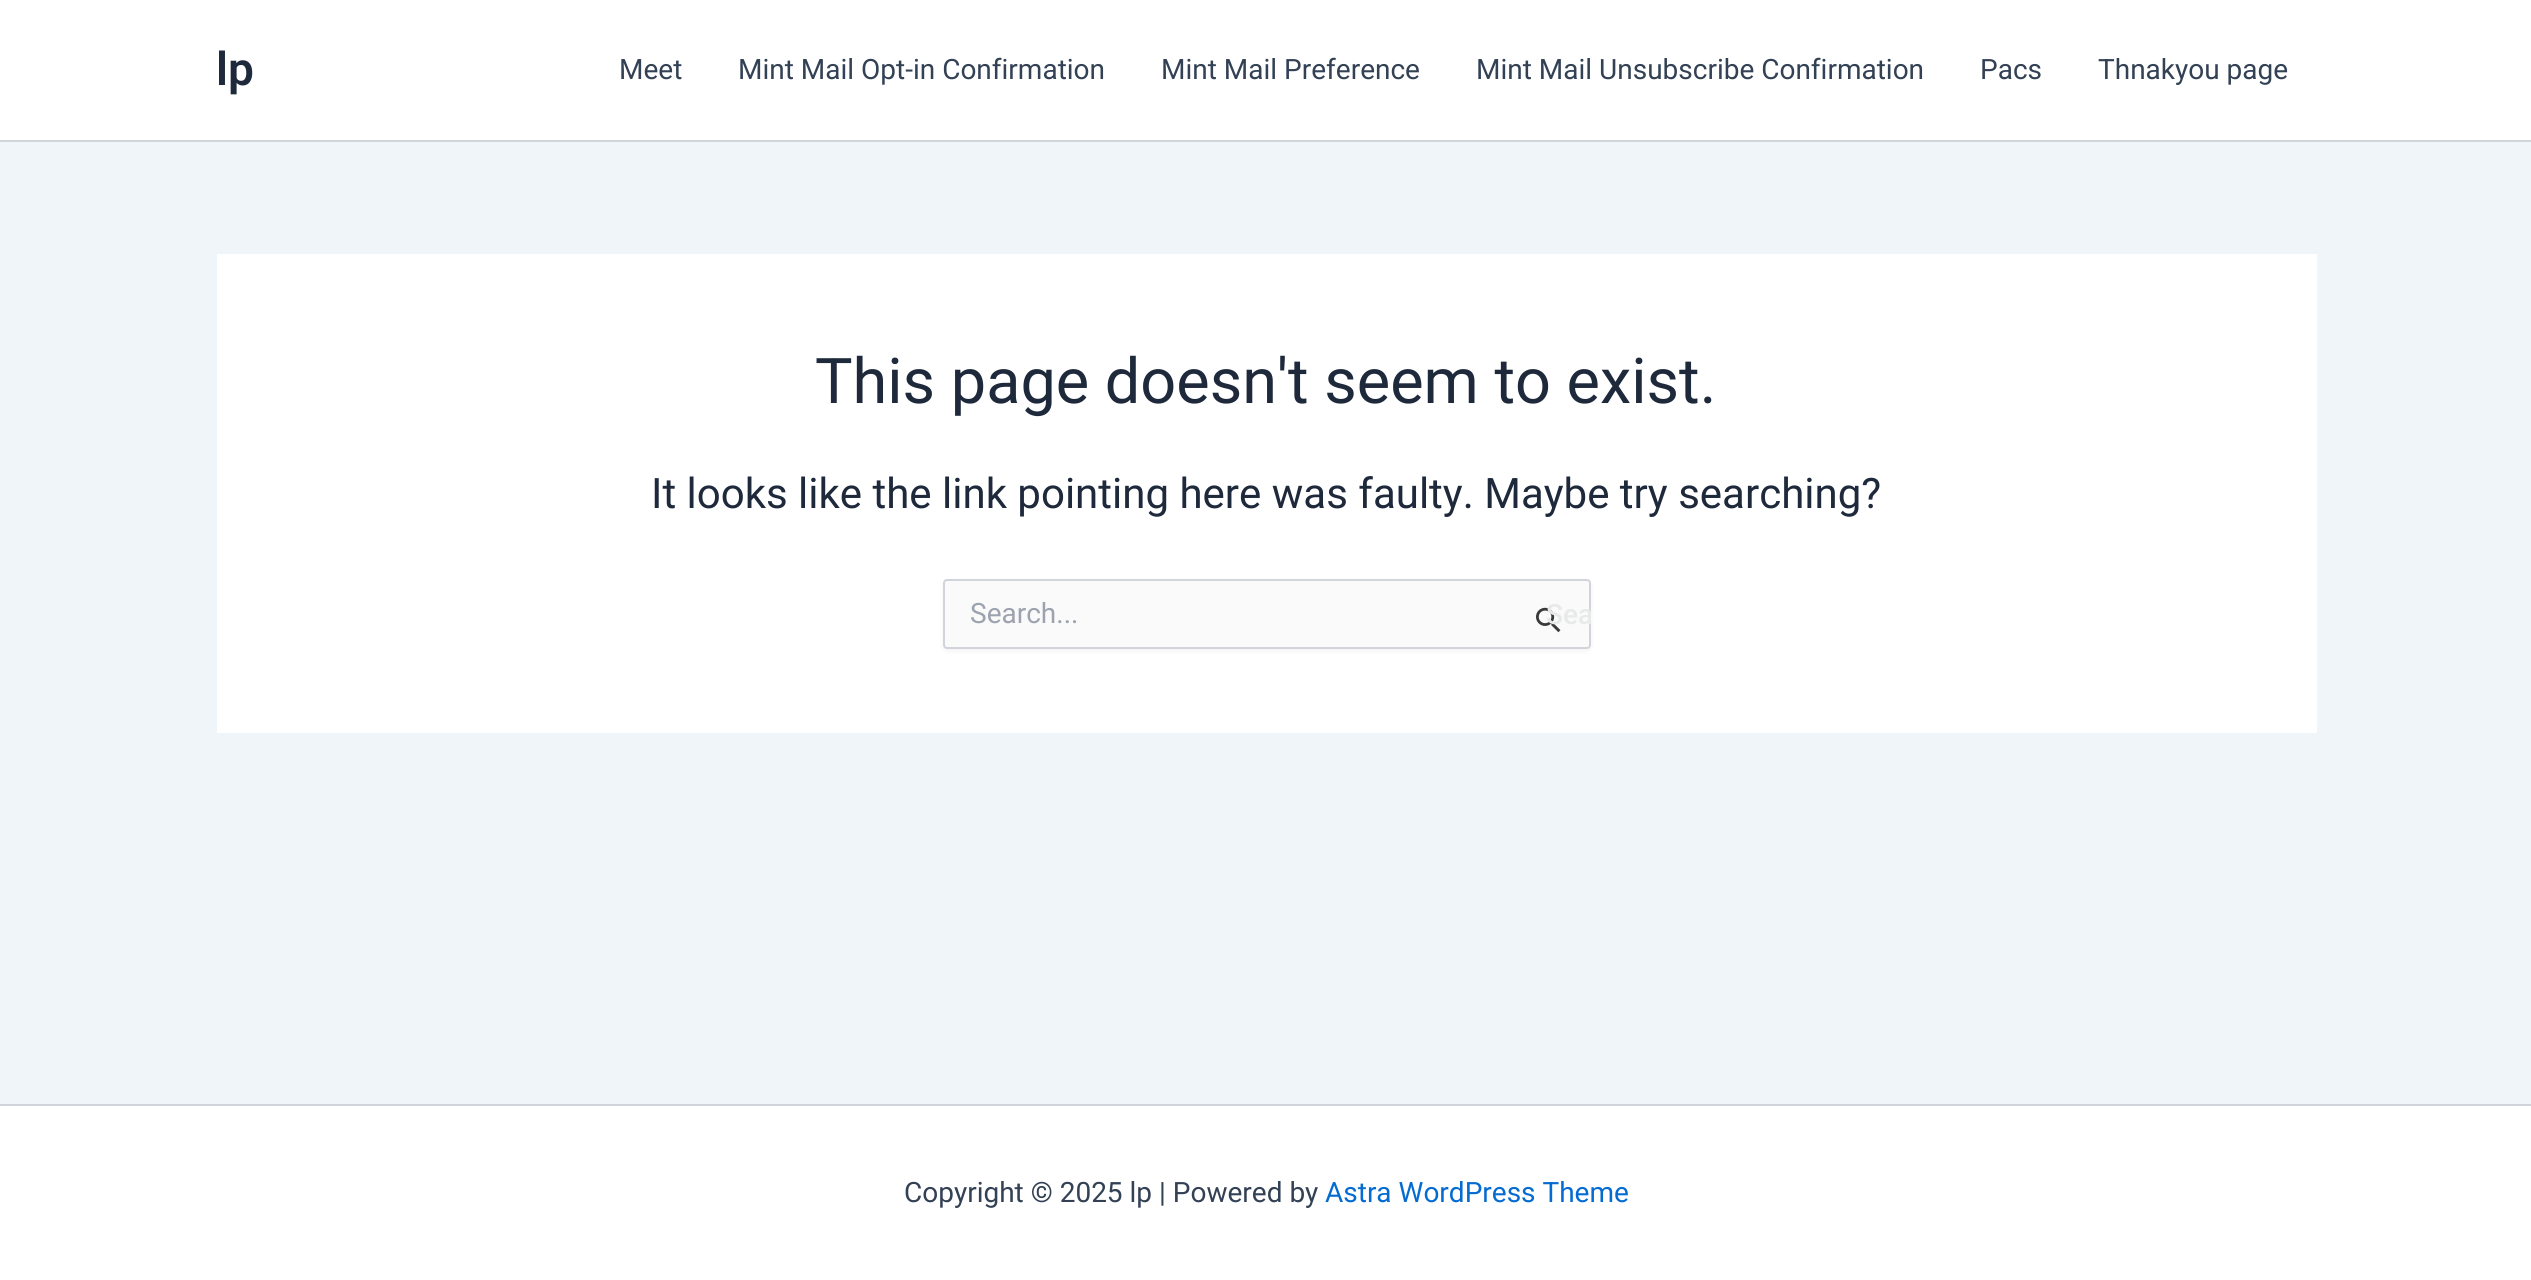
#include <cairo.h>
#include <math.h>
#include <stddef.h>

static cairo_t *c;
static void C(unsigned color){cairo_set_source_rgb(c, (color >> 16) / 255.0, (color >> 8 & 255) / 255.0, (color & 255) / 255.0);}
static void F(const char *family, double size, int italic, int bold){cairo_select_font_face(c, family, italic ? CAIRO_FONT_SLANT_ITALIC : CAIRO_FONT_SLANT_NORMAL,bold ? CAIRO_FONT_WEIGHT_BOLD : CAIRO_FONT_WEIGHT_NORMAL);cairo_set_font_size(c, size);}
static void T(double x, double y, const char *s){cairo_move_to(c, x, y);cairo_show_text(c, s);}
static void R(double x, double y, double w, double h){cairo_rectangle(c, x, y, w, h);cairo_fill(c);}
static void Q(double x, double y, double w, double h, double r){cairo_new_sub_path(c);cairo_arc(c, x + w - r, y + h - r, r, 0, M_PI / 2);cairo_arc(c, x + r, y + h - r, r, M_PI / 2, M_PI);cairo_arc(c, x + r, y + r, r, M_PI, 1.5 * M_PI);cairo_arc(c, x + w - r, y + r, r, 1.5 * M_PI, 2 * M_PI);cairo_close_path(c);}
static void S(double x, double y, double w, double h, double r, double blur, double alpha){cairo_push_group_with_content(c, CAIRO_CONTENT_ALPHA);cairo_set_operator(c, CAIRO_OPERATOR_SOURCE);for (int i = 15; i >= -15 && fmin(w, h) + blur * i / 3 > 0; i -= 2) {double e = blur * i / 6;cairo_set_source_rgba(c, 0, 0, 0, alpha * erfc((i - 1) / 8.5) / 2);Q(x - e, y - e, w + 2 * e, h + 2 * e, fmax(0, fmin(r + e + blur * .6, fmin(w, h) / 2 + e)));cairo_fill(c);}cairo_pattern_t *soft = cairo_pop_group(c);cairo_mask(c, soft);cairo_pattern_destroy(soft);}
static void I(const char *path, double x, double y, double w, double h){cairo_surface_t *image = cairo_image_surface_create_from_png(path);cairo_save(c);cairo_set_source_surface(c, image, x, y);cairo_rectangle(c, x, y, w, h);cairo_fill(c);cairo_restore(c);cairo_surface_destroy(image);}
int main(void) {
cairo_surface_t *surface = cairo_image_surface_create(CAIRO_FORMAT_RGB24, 2531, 1280);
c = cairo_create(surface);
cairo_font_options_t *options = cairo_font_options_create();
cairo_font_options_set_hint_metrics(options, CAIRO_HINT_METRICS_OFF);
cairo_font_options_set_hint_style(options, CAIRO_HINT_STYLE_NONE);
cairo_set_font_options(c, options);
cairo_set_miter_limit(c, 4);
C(0xf0f5fa);
cairo_paint(c);
C(0xffffff);
R(0,0,2531,140);
C(0xd1d5db);
R(0,140,2531,2);
F("Roboto SemiBold",46,0,0);
C(0x1e293b);
T(216,85,"lp");
F("Roboto",28,0,0);
C(0x334155);
T(619,79,"Meet");
T(738,79,"Mint Mail Opt-in Confirmation");
T(1161,79,"Mint Mail Preference");
T(1476,79,"Mint Mail Unsubscribe Confirmation");
T(1980,79,"Pacs");
T(2098,79,"Thnakyou page");
C(0xffffff);
R(217,254,2100,479);
F("Roboto",63,0,0);
C(0x1e293b);
T(815,403,"This page doesn't seem to exist.");
F("Roboto",42,0,0);
T(651,508,"It looks like the link pointing here was faulty. Maybe try searching?");
C(0x000000);
S(943,581,648,70,4,2,.05);
C(0xfafafa);
Q(944,580,646,68,3);
cairo_fill_preserve(c);
C(0xd1d5db);
cairo_stroke(c);
F("Roboto",28,0,0);
C(0x9ca3af);
T(970,623,"Search...");
I("1.png",1536,607,25,26);
cairo_save(c);
Q(1512,579,79,74,4);
cairo_clip(c);
F("Roboto Medium",28,0,0);
C(0xe8e9e9);
T(1546,624,"Sea");
cairo_restore(c);
C(0xffffff);
R(0,1106,2531,174);
C(0xd1d5db);
R(0,1104,2531,2);
C(0x334155);
T(904,1202,"Copyright © 2025 lp | Powered by");
C(0x046bd2);
T(1325,1202,"Astra WordPress Theme");
cairo_surface_write_to_png(surface, "o.png");
cairo_font_options_destroy(options);
cairo_destroy(c);
cairo_surface_destroy(surface);
return 0;
}
